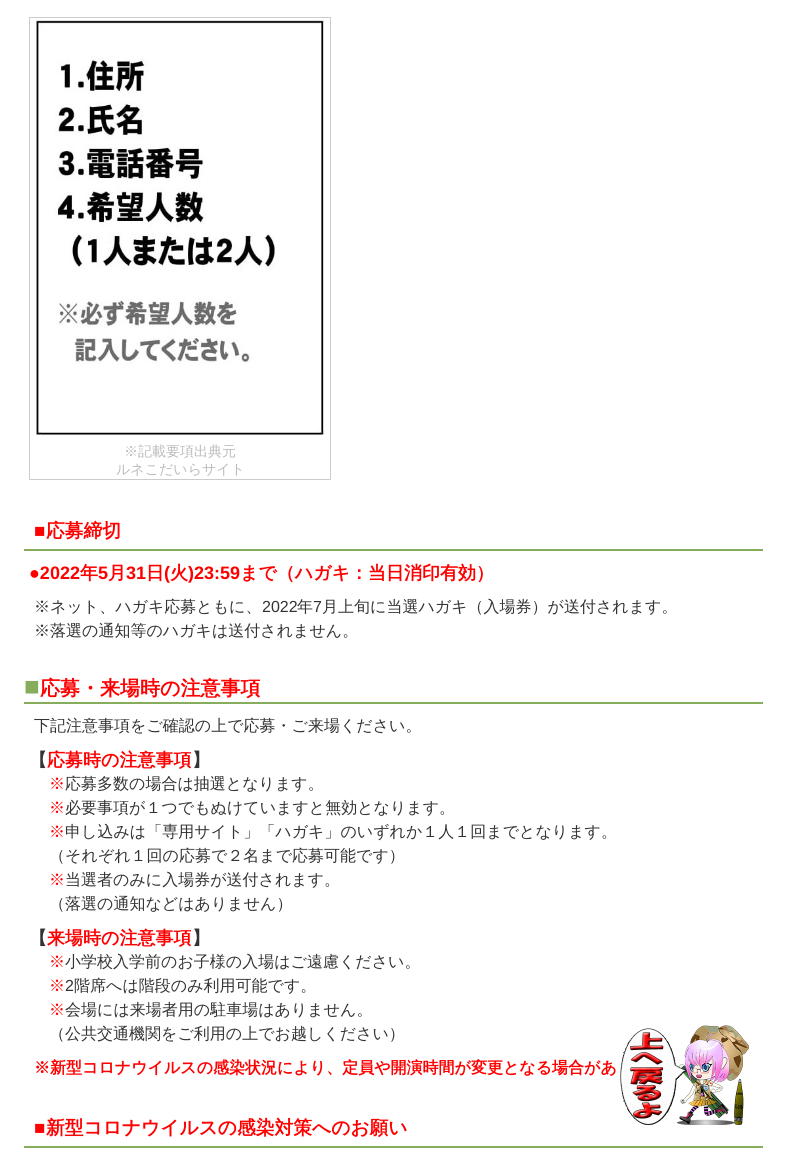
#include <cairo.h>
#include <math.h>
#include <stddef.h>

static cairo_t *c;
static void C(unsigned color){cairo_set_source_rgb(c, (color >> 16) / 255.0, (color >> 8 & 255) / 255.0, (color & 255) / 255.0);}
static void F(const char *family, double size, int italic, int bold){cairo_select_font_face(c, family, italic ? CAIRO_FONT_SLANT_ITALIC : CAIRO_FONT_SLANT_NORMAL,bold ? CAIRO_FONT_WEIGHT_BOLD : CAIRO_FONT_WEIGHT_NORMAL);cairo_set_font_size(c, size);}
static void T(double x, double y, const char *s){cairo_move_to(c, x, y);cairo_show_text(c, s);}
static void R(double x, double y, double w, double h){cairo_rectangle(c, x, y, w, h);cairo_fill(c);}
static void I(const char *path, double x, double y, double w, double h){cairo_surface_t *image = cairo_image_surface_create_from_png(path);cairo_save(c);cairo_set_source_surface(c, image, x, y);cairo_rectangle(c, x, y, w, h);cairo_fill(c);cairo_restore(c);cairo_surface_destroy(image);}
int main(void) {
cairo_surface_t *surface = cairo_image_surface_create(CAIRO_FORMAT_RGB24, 787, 1149);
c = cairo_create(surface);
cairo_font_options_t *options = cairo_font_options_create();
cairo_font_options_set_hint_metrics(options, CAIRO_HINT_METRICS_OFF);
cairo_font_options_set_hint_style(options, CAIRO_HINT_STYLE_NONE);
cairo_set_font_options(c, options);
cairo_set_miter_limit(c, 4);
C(0xffffff);
cairo_paint(c);
cairo_rectangle(c,29.5,17.5,301,462);
C(0xcccccc);
cairo_set_line_width(c,1);
cairo_stroke(c);
I("1.png",36,18,291,418);
F("WenQuanYi Zen Hei Medium",14,0,0);
C(0xbbbbbb);
T(124,456,"※記載要項出典元");
T(116,474,"ルネこだいらサイト");
C(0x85ad5c);
R(24,549,739,2);
F("Liberation Sans",18.75,0,1);
C(0xff0000);
T(34,537,"■");
F("WenQuanYi Zen Hei",18.75,0,1);
T(46,537,"応募締切");
F("Liberation Sans",18,0,1);
T(29,579,"●2022");
F("WenQuanYi Zen Hei",18,0,1);
T(80,579,"年");
F("Liberation Sans",18,0,1);
T(98,579,"5");
F("WenQuanYi Zen Hei",18,0,1);
T(108,579,"月");
F("Liberation Sans",18,0,1);
T(126,579,"31");
F("WenQuanYi Zen Hei",18,0,1);
T(146,579,"日");
F("Liberation Sans",18,0,1);
T(164,579,"(");
F("WenQuanYi Zen Hei",18,0,1);
T(170,579,"火");
F("Liberation Sans",18,0,1);
T(188,579,")23:59");
F("WenQuanYi Zen Hei",18,0,1);
T(240,579,"まで（ハガキ：当日消印有効）");
F("WenQuanYi Zen Hei Medium",16,0,0);
C(0x333333);
T(34,612,"※ネット、ハガキ応募ともに、");
F("Liberation Sans",16,0,0);
T(262,612,"2022");
F("WenQuanYi Zen Hei Medium",16,0,0);
T(297,612,"年");
F("Liberation Sans",16,0,0);
T(313,612,"7");
F("WenQuanYi Zen Hei Medium",16,0,0);
T(322,612,"月上旬に当選ハガキ（入場券）が送付されます。");
T(34,636,"※落選の通知等のハガキは送付されません。");
C(0x85ad5c);
R(24,702,739,2);
F("Liberation Sans",26,0,1);
T(24,695,"■");
F("WenQuanYi Zen Hei",20,0,1);
C(0xff0000);
T(40,695,"応募・来場時の注意事項");
F("WenQuanYi Zen Hei Medium",16,0,0);
C(0x333333);
T(34,731,"下記注意事項をご確認の上で応募・ご来場ください。");
F("WenQuanYi Zen Hei",18,0,1);
T(29,766,"【");
C(0xff0000);
T(47,766,"応募時の注意事項");
C(0x333333);
T(192,766,"】");
F("WenQuanYi Zen Hei Medium",16,0,0);
C(0xff0000);
T(49,789,"※");
C(0x333333);
T(65,789,"応募多数の場合は抽選となります。");
C(0xff0000);
T(49,813,"※");
C(0x333333);
T(65,813,"必要事項が１つでもぬけていますと無効となります。");
C(0xff0000);
T(49,837,"※");
C(0x333333);
T(65,837,"申し込みは「専用サイト」「ハガキ」のいずれか１人１回までとなります。");
T(49,861,"（それぞれ１回の応募で２名まで応募可能です）");
C(0xff0000);
T(49,885,"※");
C(0x333333);
T(65,885,"当選者のみに入場券が送付されます。");
T(49,909,"（落選の通知などはありません）");
F("WenQuanYi Zen Hei",18,0,1);
T(29,944,"【");
C(0xff0000);
T(47,944,"来場時の注意事項");
C(0x333333);
T(192,944,"】");
F("WenQuanYi Zen Hei Medium",16,0,0);
C(0xff0000);
T(49,967,"※");
C(0x333333);
T(65,967,"小学校入学前のお子様の入場はご遠慮ください。");
C(0xff0000);
T(49,991,"※");
F("Liberation Sans",16,0,0);
C(0x333333);
T(65,991,"2");
F("WenQuanYi Zen Hei Medium",16,0,0);
T(74,991,"階席へは階段のみ利用可能です。");
C(0xff0000);
T(49,1015,"※");
C(0x333333);
T(65,1015,"会場には来場者用の駐車場はありません。");
T(49,1039,"（公共交通機関をご利用の上でお越しください）");
F("WenQuanYi Zen Hei",16,0,1);
C(0xff0000);
T(34,1073,"※新型コロナウイルスの感染状況により、定員や開演時間が変更となる場合があ");
C(0x85ad5c);
R(24,1146,739,2);
F("Liberation Sans",18.75,0,1);
C(0xff0000);
T(34,1134,"■");
F("WenQuanYi Zen Hei",18.75,0,1);
T(46,1134,"新型コロナウイルスの感染対策へのお願い");
I("2.png",620,1025,129,100);
cairo_surface_write_to_png(surface, "o.png");
cairo_font_options_destroy(options);
cairo_destroy(c);
cairo_surface_destroy(surface);
return 0;
}
